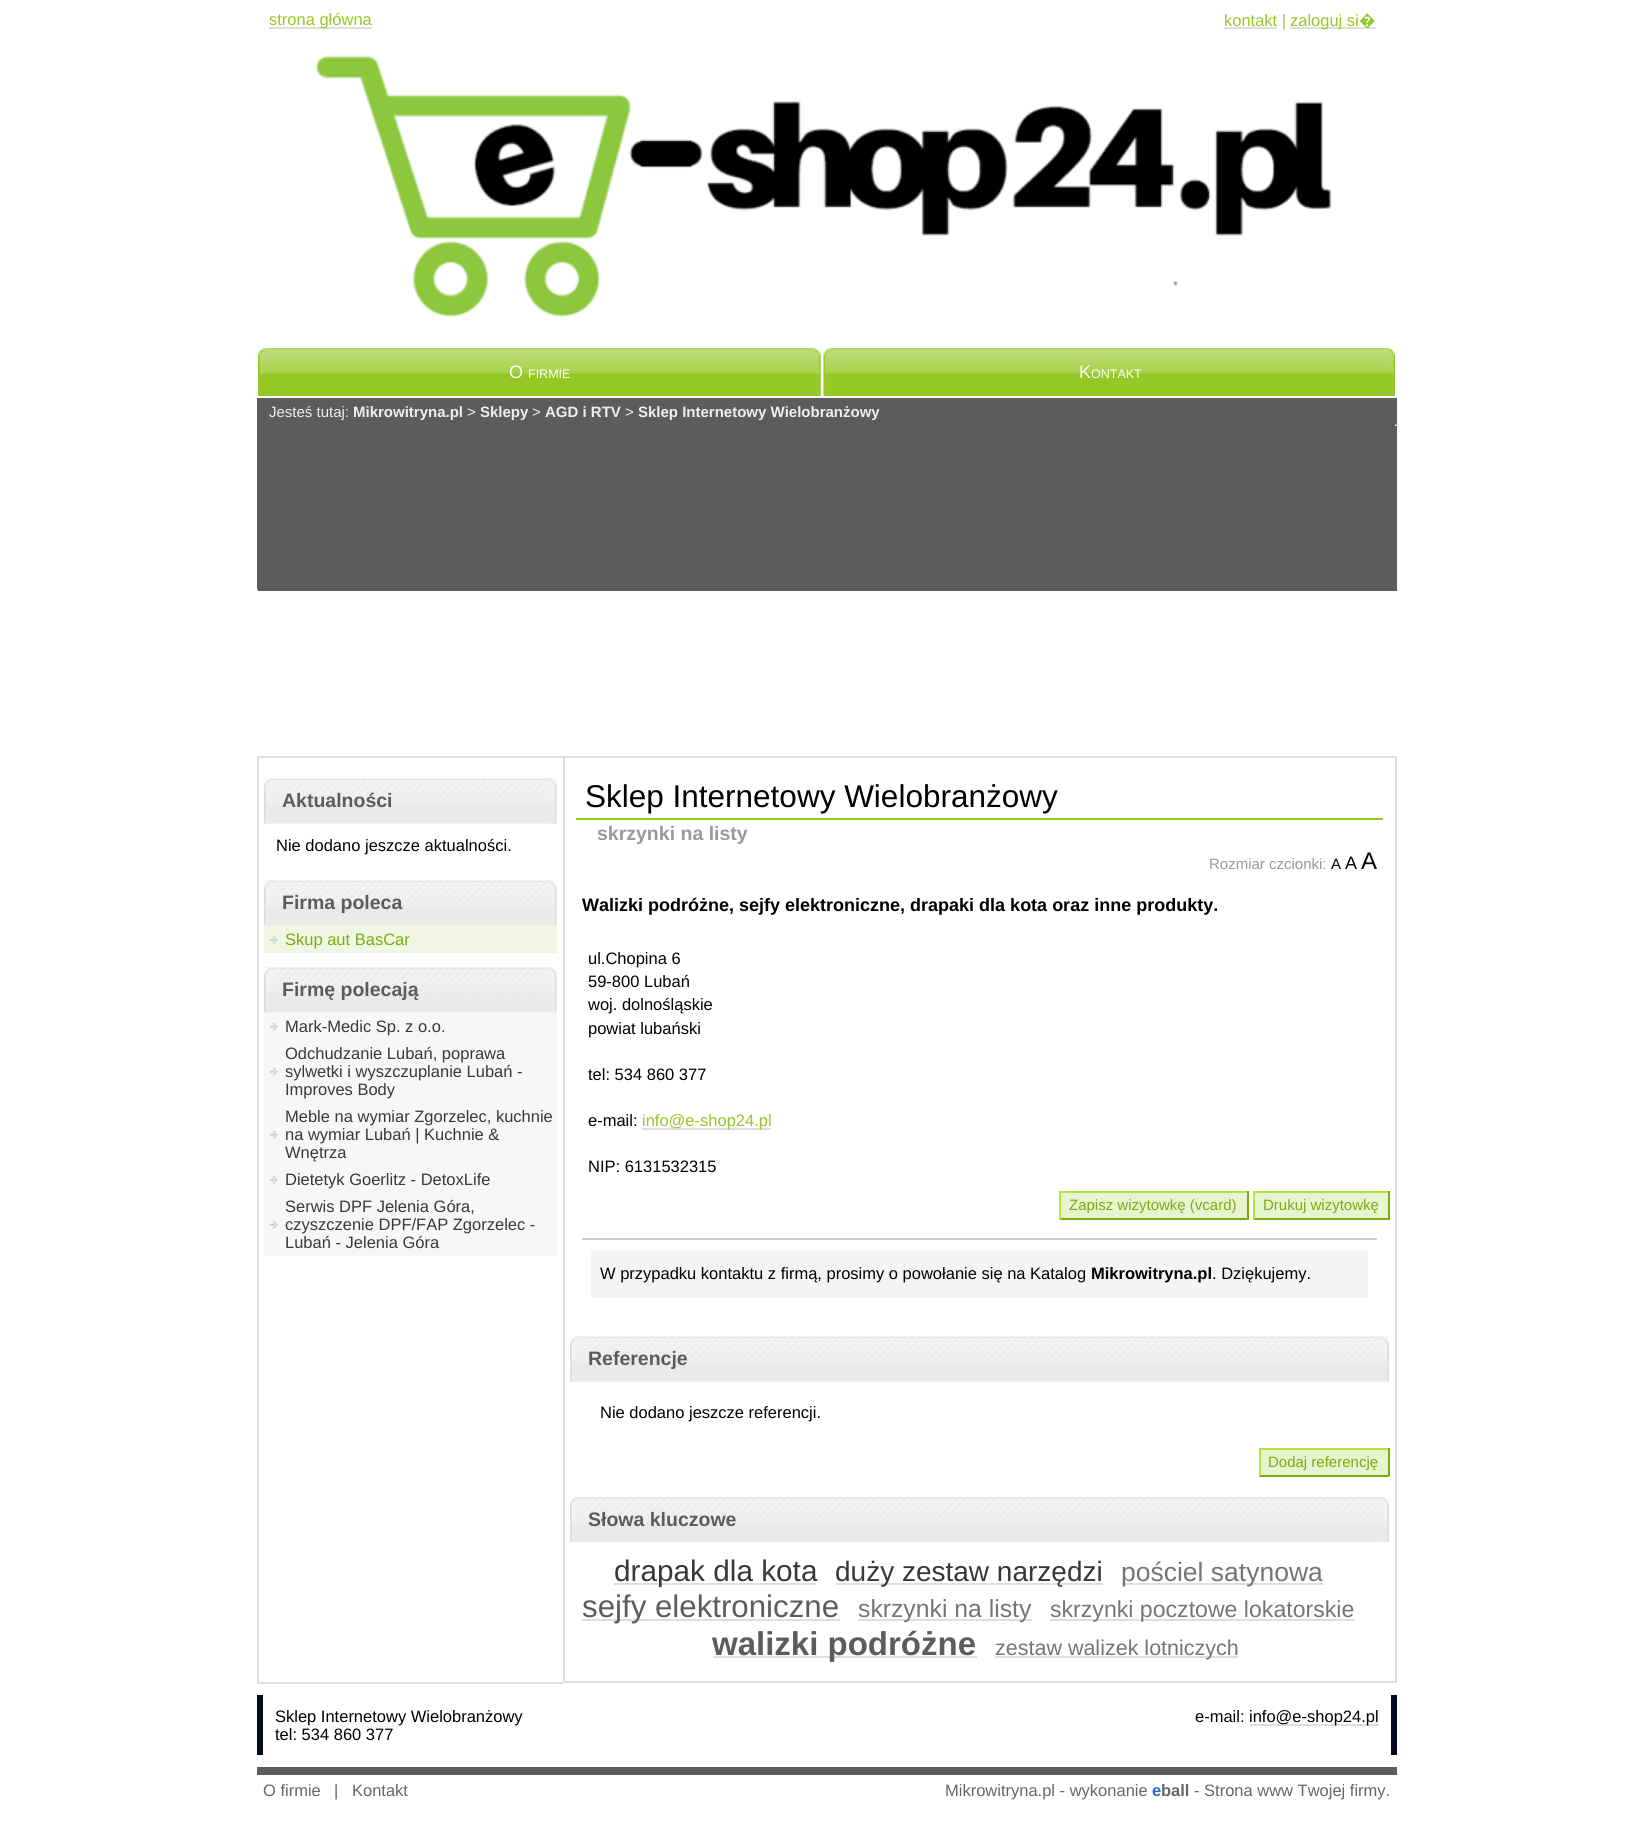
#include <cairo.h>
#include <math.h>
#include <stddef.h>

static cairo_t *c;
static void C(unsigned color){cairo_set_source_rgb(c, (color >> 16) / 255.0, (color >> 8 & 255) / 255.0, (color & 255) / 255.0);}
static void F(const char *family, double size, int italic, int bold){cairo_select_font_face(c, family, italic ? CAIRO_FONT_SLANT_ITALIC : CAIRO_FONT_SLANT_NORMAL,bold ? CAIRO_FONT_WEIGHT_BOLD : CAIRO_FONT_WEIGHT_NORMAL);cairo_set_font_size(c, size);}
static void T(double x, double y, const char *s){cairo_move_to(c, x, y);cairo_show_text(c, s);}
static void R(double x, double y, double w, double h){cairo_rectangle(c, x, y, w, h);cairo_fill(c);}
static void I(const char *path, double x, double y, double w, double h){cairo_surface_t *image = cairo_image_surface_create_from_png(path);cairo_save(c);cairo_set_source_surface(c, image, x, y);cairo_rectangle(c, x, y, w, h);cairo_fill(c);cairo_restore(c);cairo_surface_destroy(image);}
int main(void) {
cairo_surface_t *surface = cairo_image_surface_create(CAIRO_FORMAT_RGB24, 1652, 1836);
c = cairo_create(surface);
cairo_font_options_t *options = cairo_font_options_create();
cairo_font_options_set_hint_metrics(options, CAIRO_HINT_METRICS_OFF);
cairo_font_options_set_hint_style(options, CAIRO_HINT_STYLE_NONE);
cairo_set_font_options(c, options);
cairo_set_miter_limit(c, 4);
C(0xffffff);
cairo_paint(c);
C(0xdedede);
R(269,27,103,2);
F("Liberation Sans",16.5,0,0);
C(0x94c825);
T(269,25,"strona główna");
C(0xdedede);
R(1224,27,53,2);
C(0x94c825);
T(1224,26,"kontakt |");
C(0xdedede);
R(1290,27,86,2);
C(0x94c825);
T(1290,26,"zaloguj si");
F("Noto Sans",16.5,0,0);
T(1359,26,"�");
I("1.png",315,55,1017,262);
I("2.png",258,348,563,48);
I("3.png",812,348,9,48);
F("Liberation Sans",18,0,0);
C(0xffffff);
T(509,378,"O");
F("Liberation Sans",12.5,0,0);
T(528,378,"FIRMIE");
I("4.png",823,348,572,48);
I("5.png",1387,348,8,46);
F("Liberation Sans",18,0,0);
T(1079,378,"K");
F("Liberation Sans",12.5,0,0);
T(1091,378,"ONTAKT");
C(0x5c5c5c);
R(257,398,1140,193);
I("6.png",257,589,1,2);
I("7.png",1395,424,2,2);
F("Liberation Sans",15,0,0);
C(0xeeeeee);
T(269,417,"Jesteś tutaj:");
F("Liberation Sans",15,0,1);
T(353,417,"Mikrowitryna.pl");
F("Liberation Sans",15,0,0);
T(467,417,">");
F("Liberation Sans",15,0,1);
T(480,417,"Sklepy");
F("Liberation Sans",15,0,0);
T(532,417,">");
F("Liberation Sans",15,0,1);
T(545,417,"AGD i RTV");
F("Liberation Sans",15,0,0);
T(625,417,">");
F("Liberation Sans",15,0,1);
T(638,417,"Sklep Internetowy Wielobranżowy");
C(0xdedede);
R(257,756,306,2);
R(257,1682,306,2);
R(257,756,2,927);
I("8.png",264,778,293,46);
I("9.png",264,778,9,46);
I("10.png",548,778,9,46);
F("Liberation Sans",19.5,0,1);
C(0x5c5c5c);
T(282,807,"Aktualności");
F("Liberation Sans",16.5,0,0);
C(0x000000);
T(276,851,"Nie dodano jeszcze aktualności.");
I("11.png",264,880,293,46);
I("9.png",264,880,9,46);
I("10.png",548,880,9,46);
F("Liberation Sans",19.5,0,1);
C(0x5c5c5c);
T(282,909,"Firma poleca");
C(0xf0f6e3);
R(264,926,293,27);
I("12.png",270,935,8,9);
F("Liberation Sans",16.5,0,0);
C(0x7aad0b);
T(285,945,"Skup aut BasCar");
I("13.png",264,967,293,46);
I("9.png",264,967,9,46);
I("10.png",548,967,9,46);
F("Liberation Sans",19.5,0,1);
C(0x5c5c5c);
T(282,996,"Firmę polecają");
C(0xf7f7f7);
R(264,1013,293,243);
I("14.png",270,1022,8,9);
F("Liberation Sans",16.5,0,0);
C(0x393838);
T(285,1032,"Mark-Medic Sp. z o.o.");
I("14.png",270,1067,8,9);
T(285,1059,"Odchudzanie Lubań, poprawa");
T(285,1077,"sylwetki i wyszczuplanie Lubań -");
T(285,1095,"Improves Body");
I("14.png",270,1130,8,9);
T(285,1122,"Meble na wymiar Zgorzelec, kuchnie");
T(285,1140,"na wymiar Lubań | Kuchnie &");
T(285,1158,"Wnętrza");
I("14.png",270,1175,8,9);
T(285,1185,"Dietetyk Goerlitz - DetoxLife");
I("14.png",270,1220,8,9);
T(285,1212,"Serwis DPF Jelenia Góra,");
T(285,1230,"czyszczenie DPF/FAP Zgorzelec -");
T(285,1248,"Lubań - Jelenia Góra");
cairo_rectangle(c,564,757,832,925);
C(0xdedede);
cairo_stroke(c);
C(0x94c825);
R(576,818,807,2);
F("Liberation Sans",31.5,0,0);
C(0x000000);
T(585,807,"Sklep Internetowy Wielobranżowy");
F("Liberation Sans",19.5,0,1);
C(0x999999);
T(597,840,"skrzynki na listy");
F("Liberation Sans",15,0,0);
T(1209,869,"Rozmiar czcionki:");
C(0x000000);
T(1331,869,"A");
F("Liberation Sans",18,0,0);
T(1345,869,"A");
F("Liberation Sans",24,0,0);
T(1361,869,"A");
F("Liberation Sans",18,0,1);
T(582,911,"Walizki podróżne, sejfy elektroniczne, drapaki dla kota oraz inne produkty.");
F("Liberation Sans",16.5,0,0);
T(588,964,"ul.Chopina 6");
T(588,987,"59-800 Lubań");
T(588,1010,"woj. dolnośląskie");
T(588,1034,"powiat lubański");
T(588,1080,"tel: 534 860 377");
T(588,1126,"e-mail:");
C(0xdedede);
R(642,1128,129,2);
C(0x94c825);
T(642,1126,"info@e-shop24.pl");
C(0x000000);
T(588,1172,"NIP: 6131532315");
C(0xe8f3d0);
R(1061,1193,186,25);
C(0xb0e441);
R(1059,1191,189,2);
C(0x7aad0b);
R(1247,1191,2,29);
R(1059,1218,189,2);
C(0xb0e441);
R(1059,1191,2,29);
F("Liberation Sans",15,0,0);
C(0x7aad0b);
T(1069,1210,"Zapisz wizytowkę (vcard)");
C(0xe8f3d0);
R(1255,1193,133,25);
C(0xb0e441);
R(1253,1191,136,2);
C(0x7aad0b);
R(1388,1191,2,29);
R(1253,1218,136,2);
C(0xb0e441);
R(1253,1191,2,29);
C(0x7aad0b);
T(1263,1210,"Drukuj wizytowkę");
C(0xcdcdcd);
R(582,1238,795,2);
C(0xf4f4f4);
R(591,1251,777,47);
F("Liberation Sans",16.5,0,0);
C(0x000000);
T(600,1279,"W przypadku kontaktu z firmą, prosimy o powołanie się na Katalog");
F("Liberation Sans",16.5,0,1);
T(1091,1279,"Mikrowitryna.pl");
F("Liberation Sans",16.5,0,0);
T(1212,1279,". Dziękujemy.");
I("15.png",570,1336,819,46);
I("9.png",570,1336,9,46);
I("16.png",1380,1336,9,46);
F("Liberation Sans",19.5,0,1);
C(0x5c5c5c);
T(588,1365,"Referencje");
F("Liberation Sans",16.5,0,0);
C(0x000000);
T(600,1418,"Nie dodano jeszcze referencji.");
C(0xe8f3d0);
R(1261,1450,127,25);
C(0xb0e441);
R(1259,1448,130,2);
C(0x7aad0b);
R(1388,1448,2,28);
R(1259,1475,130,2);
C(0xb0e441);
R(1259,1448,2,28);
F("Liberation Sans",15,0,0);
C(0x7aad0b);
T(1268,1467,"Dodaj referencję");
I("17.png",579,1497,801,45);
I("18.png",570,1497,9,45);
I("19.png",1380,1497,9,45);
F("Liberation Sans",19.5,0,1);
C(0x5c5c5c);
T(588,1526,"Słowa kluczowe");
C(0xdedede);
R(614,1583,202,2);
F("Liberation Sans",29.75,0,0);
C(0x393838);
T(614,1581,"drapak dla kota");
C(0xdedede);
R(836,1583,267,2);
F("Liberation Sans",28,0,0);
C(0x393838);
T(835,1581,"duży zestaw narzędzi");
C(0xdedede);
R(1122,1583,201,2);
F("Liberation Sans",26.5,0,0);
C(0x757575);
T(1121,1581,"pościel satynowa");
C(0xdedede);
R(582,1619,258,2);
F("Liberation Sans",31.25,0,0);
C(0x5c5c5c);
T(582,1617,"sejfy elektroniczne");
C(0xdedede);
R(858,1619,174,2);
F("Liberation Sans",24.75,0,0);
C(0x757575);
T(858,1617,"skrzynki na listy");
C(0xdedede);
R(1050,1619,305,2);
F("Liberation Sans",23.1,0,0);
C(0x757575);
T(1050,1617,"skrzynki pocztowe lokatorskie");
C(0xdedede);
R(713,1656,264,2);
F("Liberation Sans",33,0,1);
C(0x5c5c5c);
T(712,1655,"walizki podróżne");
C(0xdedede);
R(995,1656,243,2);
F("Liberation Sans",21.5,0,0);
C(0x757575);
T(995,1655,"zestaw walizek lotniczych");
C(0x000d21);
R(257,1695,6,60);
F("Liberation Sans",16.5,0,0);
C(0x000000);
T(275,1722,"Sklep Internetowy Wielobranżowy");
T(275,1740,"tel: 534 860 377");
C(0x000d21);
R(1391,1695,6,60);
C(0x000000);
T(1195,1722,"e-mail:");
C(0xdedede);
R(1250,1724,129,2);
C(0x000000);
T(1249,1722,"info@e-shop24.pl");
C(0x5c5c5c);
R(257,1767,1140,8);
C(0x666666);
T(263,1796,"O firmie");
T(334,1796,"|");
T(352,1796,"Kontakt");
T(945,1796,"Mikrowitryna.pl - wykonanie");
F("Liberation Sans",16.5,0,1);
C(0x3366cc);
T(1152,1796,"e");
C(0x666666);
T(1161,1796,"ball");
F("Liberation Sans",16.5,0,0);
T(1194,1796,"- Strona www Twojej firmy.");
cairo_surface_write_to_png(surface, "o.png");
cairo_font_options_destroy(options);
cairo_destroy(c);
cairo_surface_destroy(surface);
return 0;
}
